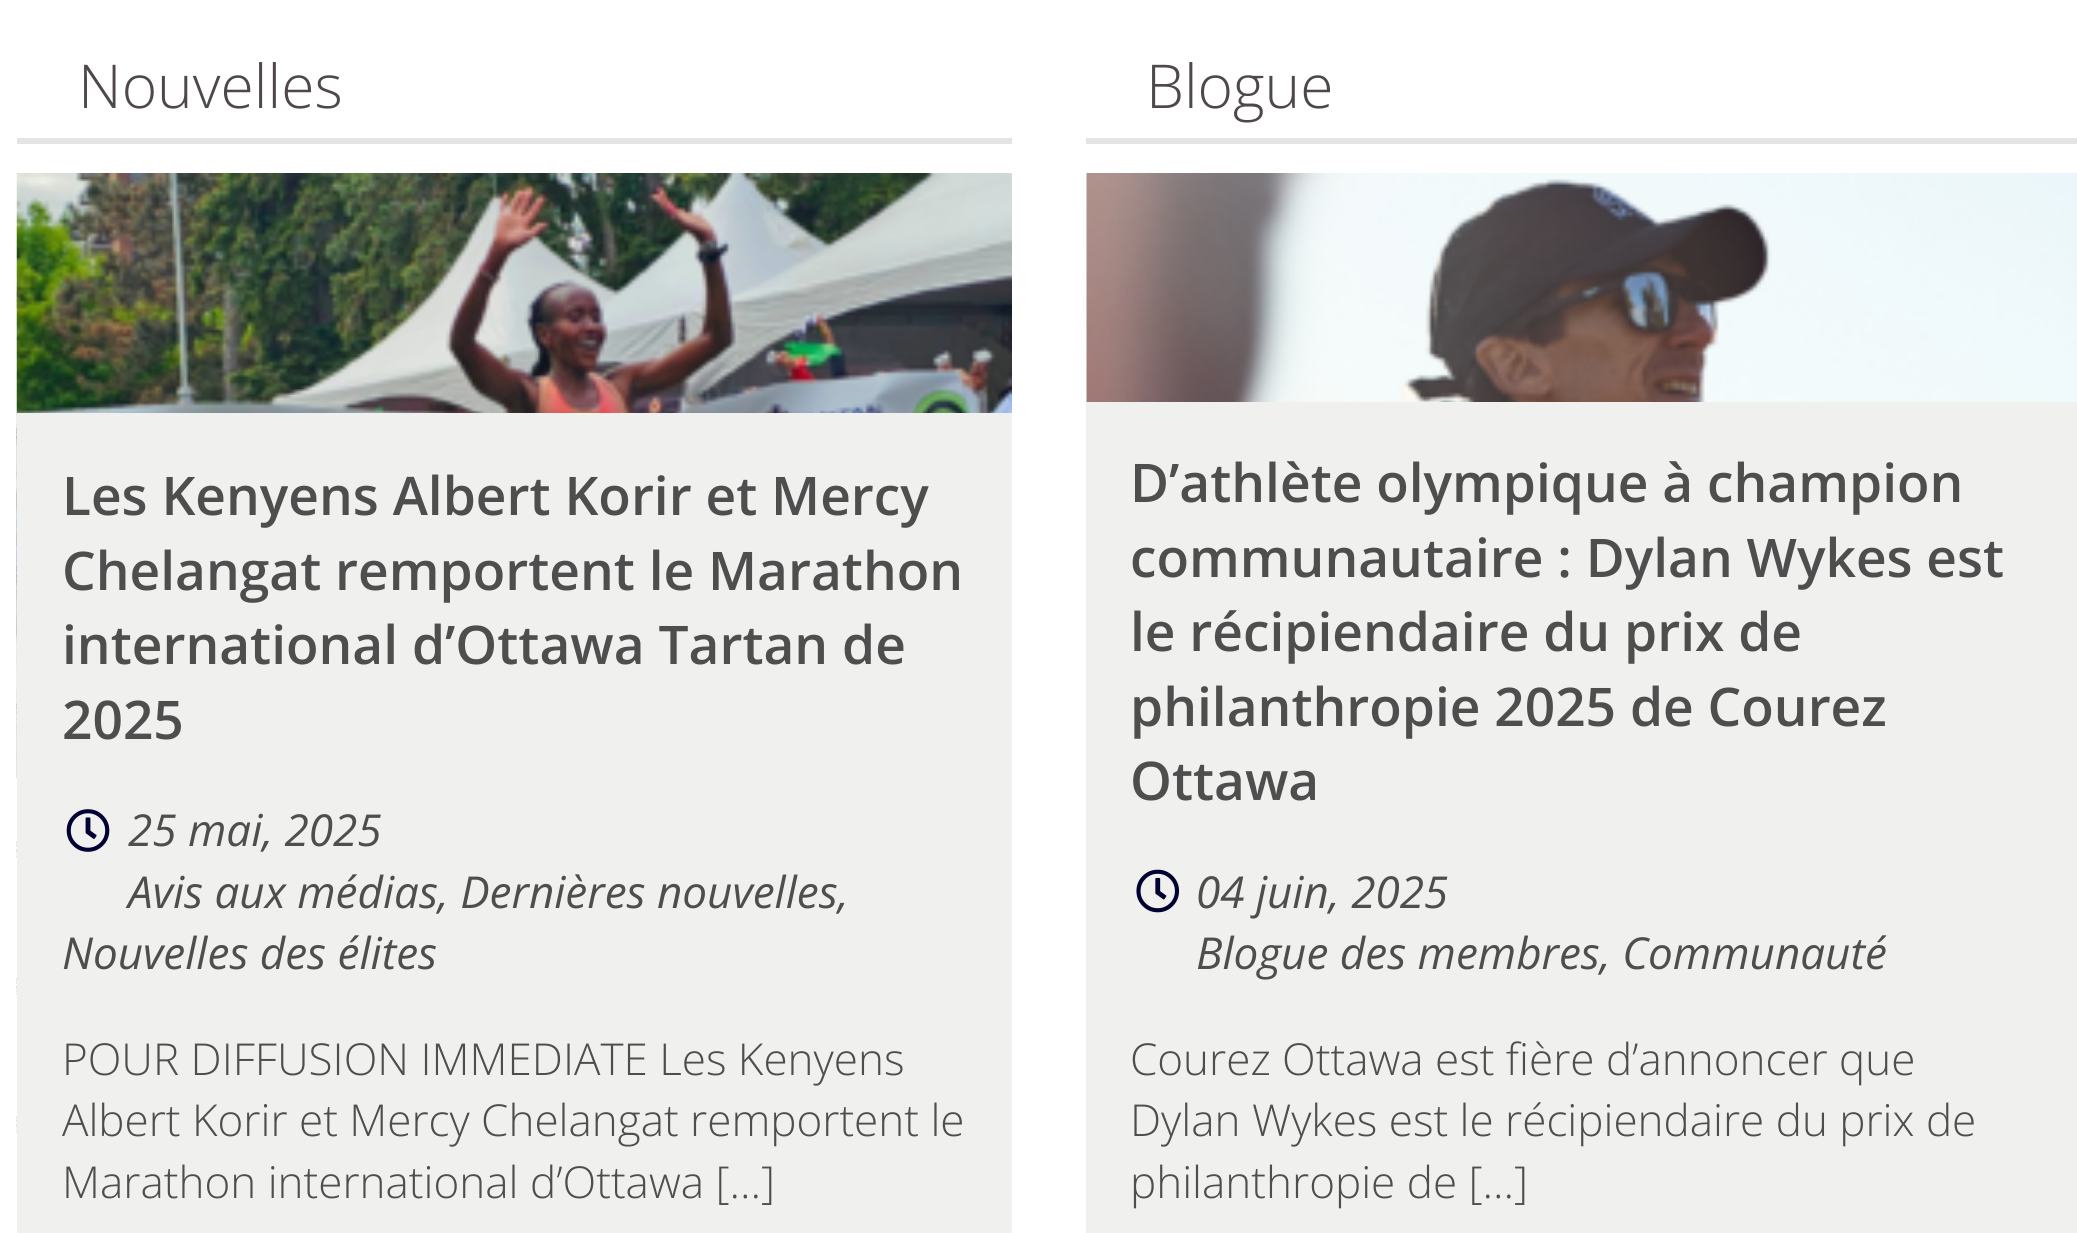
#include <cairo.h>
#include <math.h>
#include <stddef.h>

static cairo_t *c;
static void C(unsigned color){cairo_set_source_rgb(c, (color >> 16) / 255.0, (color >> 8 & 255) / 255.0, (color & 255) / 255.0);}
static void F(const char *family, double size, int italic, int bold){cairo_select_font_face(c, family, italic ? CAIRO_FONT_SLANT_ITALIC : CAIRO_FONT_SLANT_NORMAL,bold ? CAIRO_FONT_WEIGHT_BOLD : CAIRO_FONT_WEIGHT_NORMAL);cairo_set_font_size(c, size);}
static void T(double x, double y, const char *s){cairo_move_to(c, x, y);cairo_show_text(c, s);}
static void R(double x, double y, double w, double h){cairo_rectangle(c, x, y, w, h);cairo_fill(c);}
static void I(const char *path, double x, double y, double w, double h){cairo_surface_t *image = cairo_image_surface_create_from_png(path);cairo_save(c);cairo_set_source_surface(c, image, x, y);cairo_rectangle(c, x, y, w, h);cairo_fill(c);cairo_restore(c);cairo_surface_destroy(image);}
int main(void) {
cairo_surface_t *surface = cairo_image_surface_create(CAIRO_FORMAT_RGB24, 2077, 1233);
c = cairo_create(surface);
cairo_font_options_t *options = cairo_font_options_create();
cairo_font_options_set_hint_metrics(options, CAIRO_HINT_METRICS_OFF);
cairo_font_options_set_hint_style(options, CAIRO_HINT_STYLE_NONE);
cairo_set_font_options(c, options);
cairo_set_miter_limit(c, 4);
C(0xffffff);
cairo_paint(c);
C(0xe5e4e4);
R(17,138,995,6);
F("Open Sans Light",60.5,0,0);
C(0x4e4848);
T(78,108,"Nouvelles");
I("1.png",16,291,1,842);
I("2.png",16,173,996,605);
C(0xf0f0ef);
R(17,413,995,820);
F("Open Sans SemiBold",53.25,0,0);
C(0x4e4e4e);
T(62,515,"Les Kenyens Albert Korir et Mercy");
T(62,590,"Chelangat remportent le Marathon");
T(62,664,"international d’Ottawa Tartan de");
T(62,739,"2025");
I("3.png",66,809,44,43);
F("Open Sans",44,1,0);
T(128,846,"25 mai, 2025");
T(128,908,"Avis aux médias, Dernières nouvelles,");
T(62,969,"Nouvelles des élites");
F("Open Sans Light",44,0,0);
T(62,1075,"POUR DIFFUSION IMMEDIATE Les Kenyens");
T(62,1136,"Albert Korir et Mercy Chelangat remportent le");
T(62,1198,"Marathon international d’Ottawa […]");
C(0xe5e4e4);
R(1086,138,991,6);
F("Open Sans Light",60.5,0,0);
C(0x4e4848);
T(1146,108,"Blogue");
C(0xf0f0ef);
R(1086,173,1,229);
I("4.png",1086,173,991,229);
R(1086,402,991,831);
F("Open Sans SemiBold",53.25,0,0);
C(0x4e4e4e);
T(1130,502,"D’athlète olympique à champion");
T(1130,577,"communautaire : Dylan Wykes est");
T(1130,651,"le récipiendaire du prix de");
T(1130,726,"philanthropie 2025 de Courez");
T(1130,800,"Ottawa");
I("5.png",1136,869,44,44);
F("Open Sans",44,1,0);
T(1196,908,"04 juin, 2025");
T(1196,969,"Blogue des membres, Communauté");
F("Open Sans Light",44,0,0);
T(1130,1075,"Courez Ottawa est fière d’annoncer que");
T(1130,1136,"Dylan Wykes est le récipiendaire du prix de");
T(1130,1198,"philanthropie de […]");
cairo_surface_write_to_png(surface, "o.png");
cairo_font_options_destroy(options);
cairo_destroy(c);
cairo_surface_destroy(surface);
return 0;
}
